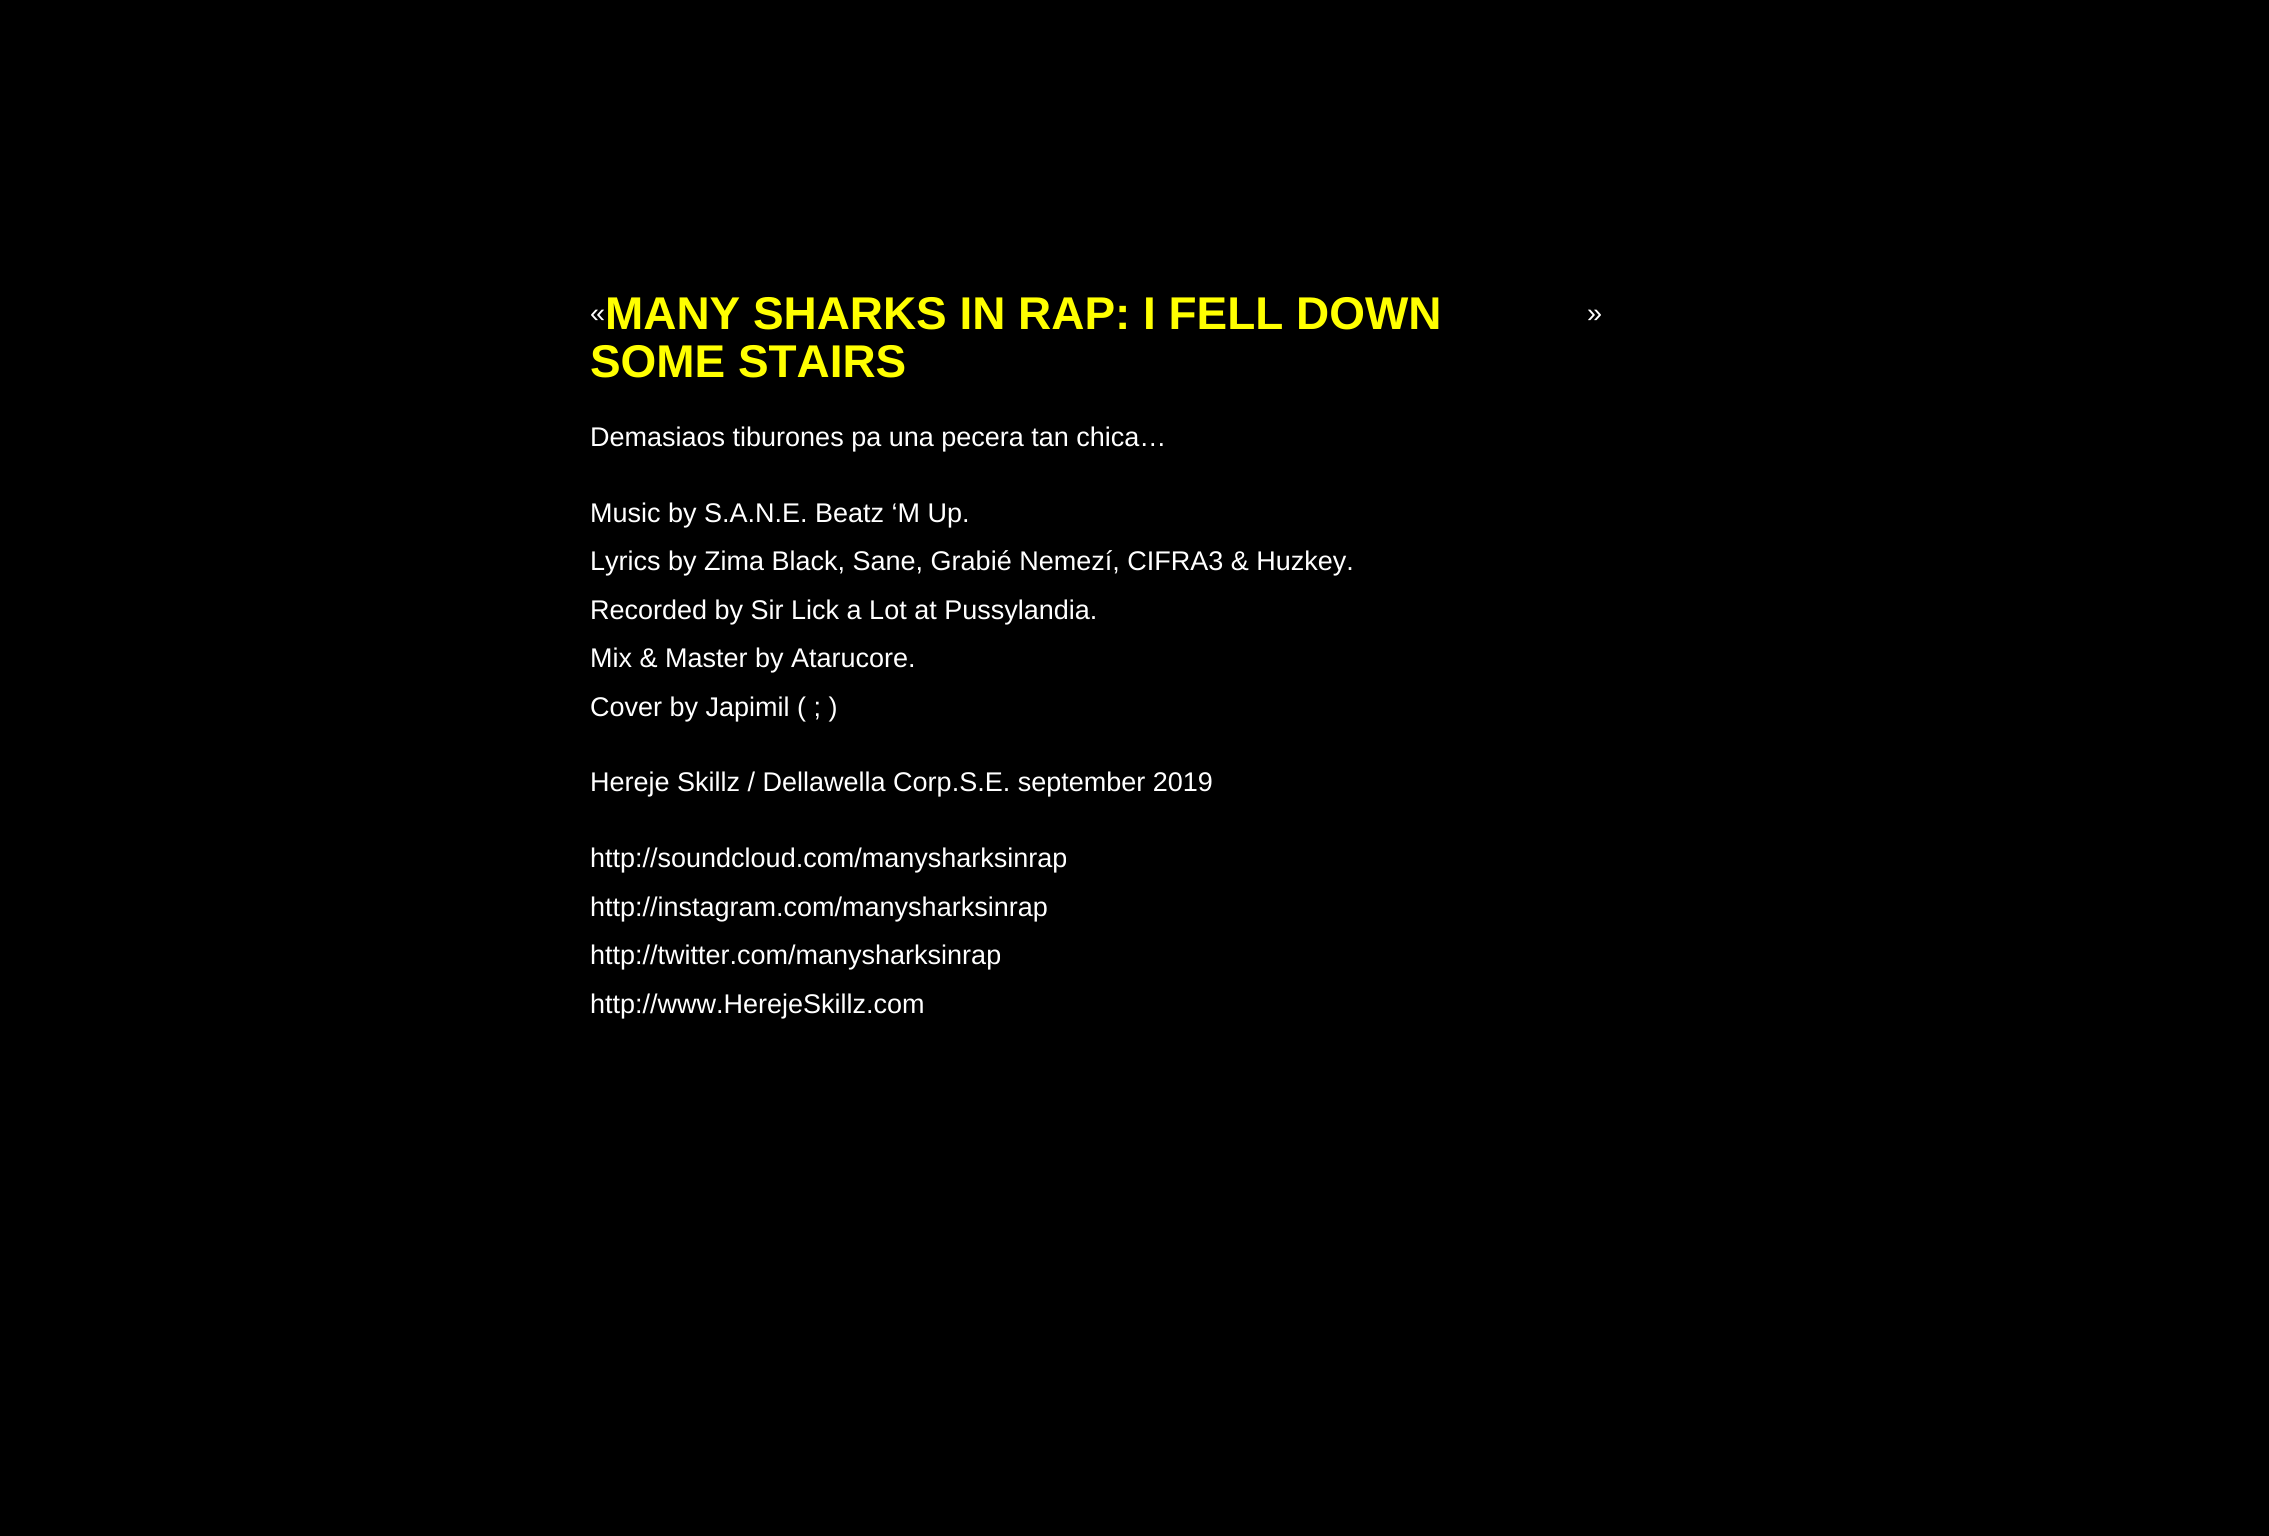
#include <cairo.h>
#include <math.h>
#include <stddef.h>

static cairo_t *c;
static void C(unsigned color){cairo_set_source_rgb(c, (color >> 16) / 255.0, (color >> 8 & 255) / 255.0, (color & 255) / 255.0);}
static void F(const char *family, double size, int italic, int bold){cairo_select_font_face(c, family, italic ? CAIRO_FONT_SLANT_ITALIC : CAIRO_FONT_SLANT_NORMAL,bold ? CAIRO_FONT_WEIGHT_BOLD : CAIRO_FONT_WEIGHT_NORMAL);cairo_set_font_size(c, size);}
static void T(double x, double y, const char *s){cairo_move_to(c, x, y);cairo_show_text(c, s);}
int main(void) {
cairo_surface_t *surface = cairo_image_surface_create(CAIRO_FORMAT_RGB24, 2269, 1536);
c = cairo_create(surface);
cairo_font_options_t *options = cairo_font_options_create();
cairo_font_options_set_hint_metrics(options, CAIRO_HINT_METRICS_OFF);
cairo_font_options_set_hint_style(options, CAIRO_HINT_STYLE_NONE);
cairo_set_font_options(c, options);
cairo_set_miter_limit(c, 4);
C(0x000000);
cairo_paint(c);
F("Liberation Sans",45.9,0,1);
C(0xffff00);
T(605,329,"MANY SHARKS IN RAP: I FELL DOWN");
T(590,377,"SOME STAIRS");
F("Liberation Sans",27,0,0);
C(0xffffff);
T(590,322,"«");
T(1587,322,"»");
T(590,446,"Demasiaos tiburones pa una pecera tan chica…");
T(590,522,"Music by S.A.N.E. Beatz ‘M Up.");
T(590,570,"Lyrics by Zima Black, Sane, Grabié Nemezí, CIFRA3 & Huzkey.");
T(590,619,"Recorded by Sir Lick a Lot at Pussylandia.");
T(590,667,"Mix & Master by Atarucore.");
T(590,716,"Cover by Japimil ( ; )");
T(590,791,"Hereje Skillz / Dellawella Corp.S.E. september 2019");
T(590,867,"http://soundcloud.com/manysharksinrap");
T(590,916,"http://instagram.com/manysharksinrap");
T(590,964,"http://twitter.com/manysharksinrap");
T(590,1013,"http://www.HerejeSkillz.com");
cairo_surface_write_to_png(surface, "o.png");
cairo_font_options_destroy(options);
cairo_destroy(c);
cairo_surface_destroy(surface);
return 0;
}
